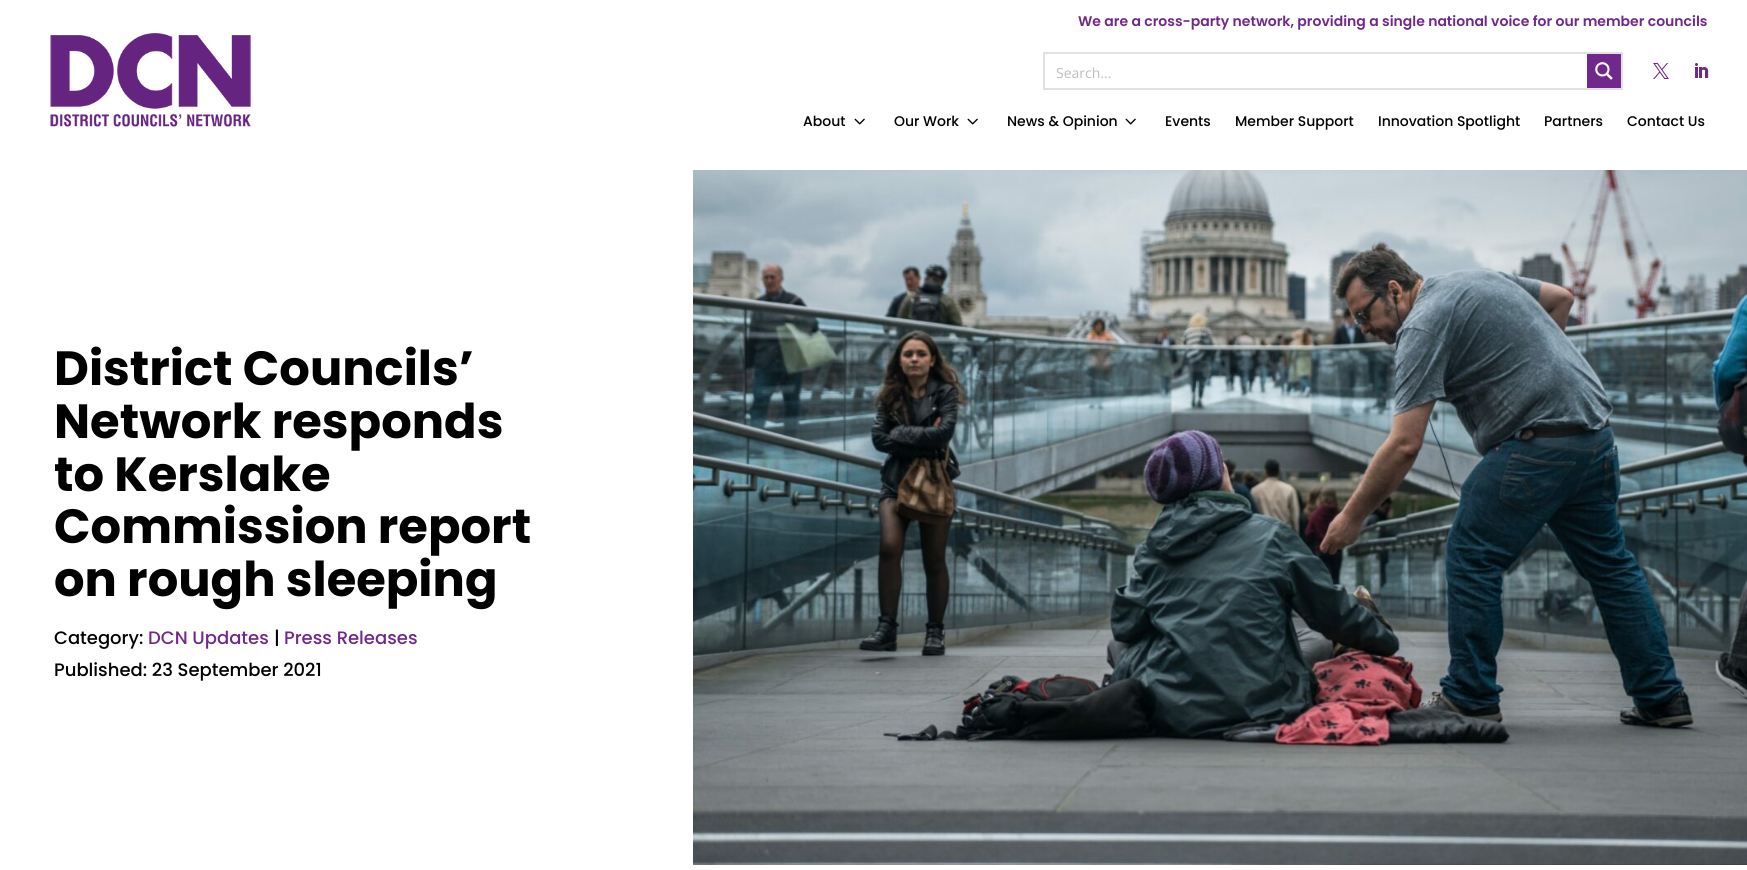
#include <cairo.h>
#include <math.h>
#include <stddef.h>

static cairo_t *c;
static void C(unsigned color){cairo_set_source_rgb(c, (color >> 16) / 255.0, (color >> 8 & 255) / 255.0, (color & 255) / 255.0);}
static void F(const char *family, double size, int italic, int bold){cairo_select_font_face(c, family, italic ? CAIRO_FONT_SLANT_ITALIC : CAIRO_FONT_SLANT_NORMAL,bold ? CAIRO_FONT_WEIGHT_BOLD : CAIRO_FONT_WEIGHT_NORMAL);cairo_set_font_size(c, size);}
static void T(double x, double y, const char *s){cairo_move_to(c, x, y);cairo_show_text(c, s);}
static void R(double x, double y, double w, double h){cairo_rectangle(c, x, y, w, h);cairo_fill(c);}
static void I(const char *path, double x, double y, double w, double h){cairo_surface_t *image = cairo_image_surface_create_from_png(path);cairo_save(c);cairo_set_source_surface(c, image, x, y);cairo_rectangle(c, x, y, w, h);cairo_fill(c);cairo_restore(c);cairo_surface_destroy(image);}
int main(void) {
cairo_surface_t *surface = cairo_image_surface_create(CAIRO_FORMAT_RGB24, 1747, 870);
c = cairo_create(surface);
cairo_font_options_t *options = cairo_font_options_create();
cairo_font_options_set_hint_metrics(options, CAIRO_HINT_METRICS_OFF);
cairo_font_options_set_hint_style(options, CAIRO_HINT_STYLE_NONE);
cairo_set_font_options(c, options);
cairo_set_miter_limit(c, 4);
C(0xffffff);
cairo_paint(c);
F("Poppins SemiBold",14,0,0);
C(0x70288a);
T(1078,26,"We are a cross-party network, providing a single national voice for our member councils");
cairo_rectangle(c,1044,53,578,36);
C(0xe1e1e1);
cairo_stroke(c);
F("Open Sans",14,0,0);
C(0xbebebe);
T(1056,78,"Search...");
C(0x70288a);
R(1587,54,34,34);
I("1.png",1595,62,18,18);
I("2.png",1653,63,16,16);
I("3.png",1695,63,14,15);
I("4.png",50,33,201,94);
F("Poppins Medium",14,0,0);
C(0x000000);
T(803,126,"About");
I("5.png",854,118,11,7);
T(894,126,"Our Work");
I("5.png",967,118,11,7);
T(1007,126,"News & Opinion");
I("5.png",1125,118,11,7);
T(1165,126,"Events");
T(1235,126,"Member Support");
T(1378,126,"Innovation Spotlight");
T(1544,126,"Partners");
T(1627,126,"Contact Us");
F("Poppins",48,0,1);
T(54,385,"District Councils’");
T(54,438,"Network responds");
T(54,491,"to Kerslake");
T(54,543,"Commission report");
T(54,596,"on rough sleeping");
F("Poppins Medium",18,0,0);
T(54,644,"Category:");
C(0x70288a);
T(148,644,"DCN Updates");
C(0x000000);
T(274,644,"|");
C(0x70288a);
T(284,644,"Press Releases");
C(0x000000);
T(54,676,"Published: 23 September 2021");
I("6.png",693,170,1054,695);
cairo_surface_write_to_png(surface, "o.png");
cairo_font_options_destroy(options);
cairo_destroy(c);
cairo_surface_destroy(surface);
return 0;
}
